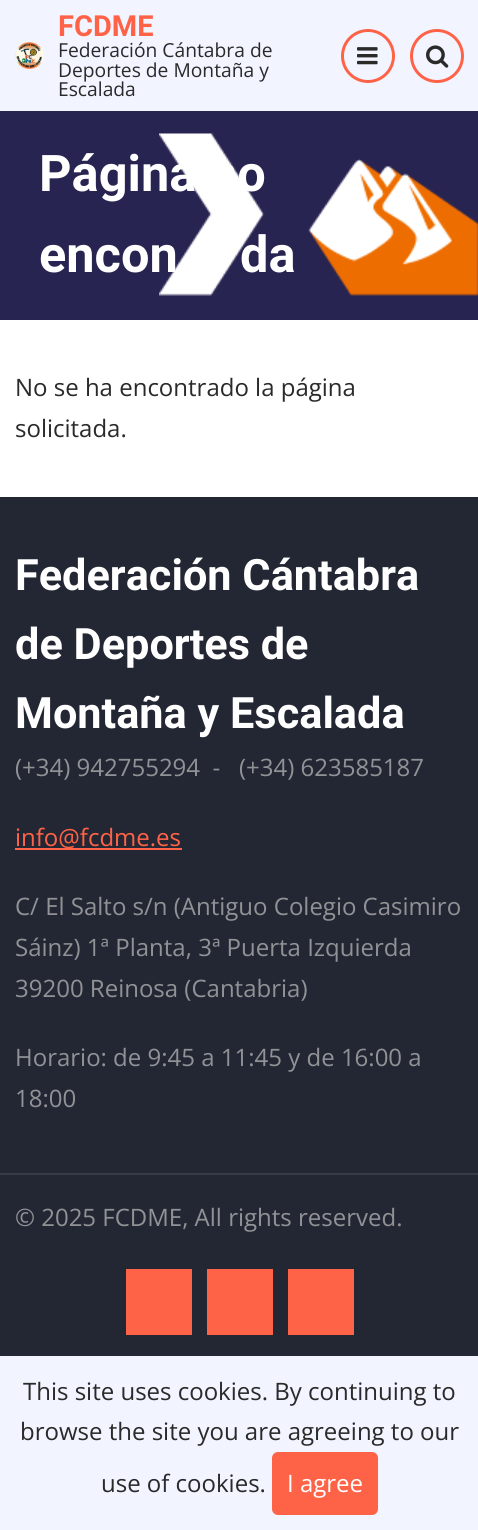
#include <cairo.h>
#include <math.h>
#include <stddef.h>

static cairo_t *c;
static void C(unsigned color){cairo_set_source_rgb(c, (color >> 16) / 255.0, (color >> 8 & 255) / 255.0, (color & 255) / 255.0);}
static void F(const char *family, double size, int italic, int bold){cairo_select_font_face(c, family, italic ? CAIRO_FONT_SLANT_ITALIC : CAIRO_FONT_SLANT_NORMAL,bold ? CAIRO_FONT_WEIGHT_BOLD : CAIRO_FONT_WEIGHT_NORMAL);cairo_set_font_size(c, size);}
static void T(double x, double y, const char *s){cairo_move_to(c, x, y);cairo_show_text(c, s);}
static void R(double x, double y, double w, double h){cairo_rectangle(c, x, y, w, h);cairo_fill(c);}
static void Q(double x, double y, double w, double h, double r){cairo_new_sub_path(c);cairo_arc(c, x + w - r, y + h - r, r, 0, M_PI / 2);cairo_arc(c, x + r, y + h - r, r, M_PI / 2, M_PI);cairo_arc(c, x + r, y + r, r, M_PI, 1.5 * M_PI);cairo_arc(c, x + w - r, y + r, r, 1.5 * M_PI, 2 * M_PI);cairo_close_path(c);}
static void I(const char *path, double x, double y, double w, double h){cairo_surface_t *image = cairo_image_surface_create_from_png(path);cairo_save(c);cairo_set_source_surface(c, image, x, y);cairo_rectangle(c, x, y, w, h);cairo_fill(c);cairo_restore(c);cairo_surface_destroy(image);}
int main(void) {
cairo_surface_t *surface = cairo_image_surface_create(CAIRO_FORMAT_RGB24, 478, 1530);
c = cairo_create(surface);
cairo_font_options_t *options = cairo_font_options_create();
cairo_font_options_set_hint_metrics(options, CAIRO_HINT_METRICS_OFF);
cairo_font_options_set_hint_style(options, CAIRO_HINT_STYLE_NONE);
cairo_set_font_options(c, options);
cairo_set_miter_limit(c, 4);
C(0xffffff);
cairo_paint(c);
C(0xf2f4ff);
R(0,0,478,111);
I("1.png",15,42,29,27);
F("Roboto",29,0,1);
C(0xff6347);
T(58,36,"FCDME");
F("Open Sans",19.25,0,0);
C(0x2a2a2a);
T(58,57,"Federación Cántabra de");
T(58,77,"Deportes de Montaña y");
T(58,96,"Escalada");
cairo_new_path(c);
cairo_arc(c,368,56,25.5,0,2 * M_PI);
C(0xff6347);
cairo_set_line_width(c,3);
cairo_stroke(c);
I("2.png",357,47,21,18);
cairo_arc(c,437,56,25.5,0,2 * M_PI);
cairo_stroke(c);
I("3.png",426,45,23,23);
C(0x282451);
R(0,111,478,209);
I("4.png",159,133,319,163);
F("Roboto",50.5,0,1);
C(0xffffff);
T(39,191,"Página no");
T(39,272,"encon");
T(240,272,"da");
F("Open Sans",24,0,0);
C(0x2a2a2a);
T(15,396,"No se ha encontrado la página");
T(15,437,"solicitada.");
C(0x232733);
R(0,497,478,859);
F("Roboto",43.25,0,1);
C(0xffffff);
T(15,590,"Federación Cántabra");
T(15,659,"de Deportes de");
T(15,728,"Montaña y Escalada");
F("Open Sans",24,0,0);
C(0x919296);
T(15,776,"(+34) 942755294  -   (+34) 623585187");
C(0xff6347);
R(15,848,167,2);
T(15,846,"info@fcdme.es");
C(0x919296);
T(15,915,"C/ El Salto s/n (Antiguo Colegio Casimiro");
T(15,956,"Sáinz) 1ª Planta, 3ª Puerta Izquierda");
T(15,997,"39200 Reinosa (Cantabria)");
T(15,1066,"Horario: de 9:45 a 11:45 y de 16:00 a");
T(15,1107,"18:00");
C(0x373b48);
R(0,1173,478,2);
C(0x919296);
T(15,1226,"© 2025 FCDME, All rights reserved.");
C(0xff6347);
R(126,1269,66,66);
R(207,1269,66,66);
R(288,1269,66,66);
C(0xf2f4ff);
R(0,1356,478,174);
C(0x2a2a2a);
T(23,1400,"This site uses cookies. By continuing to");
T(20,1440,"browse the site you are agreeing to our");
T(101,1492,"use of cookies.");
C(0xff6347);
Q(272,1452,106,63,6);
cairo_fill(c);
C(0xffffff);
T(287,1492,"I agree");
cairo_surface_write_to_png(surface, "o.png");
cairo_font_options_destroy(options);
cairo_destroy(c);
cairo_surface_destroy(surface);
return 0;
}
